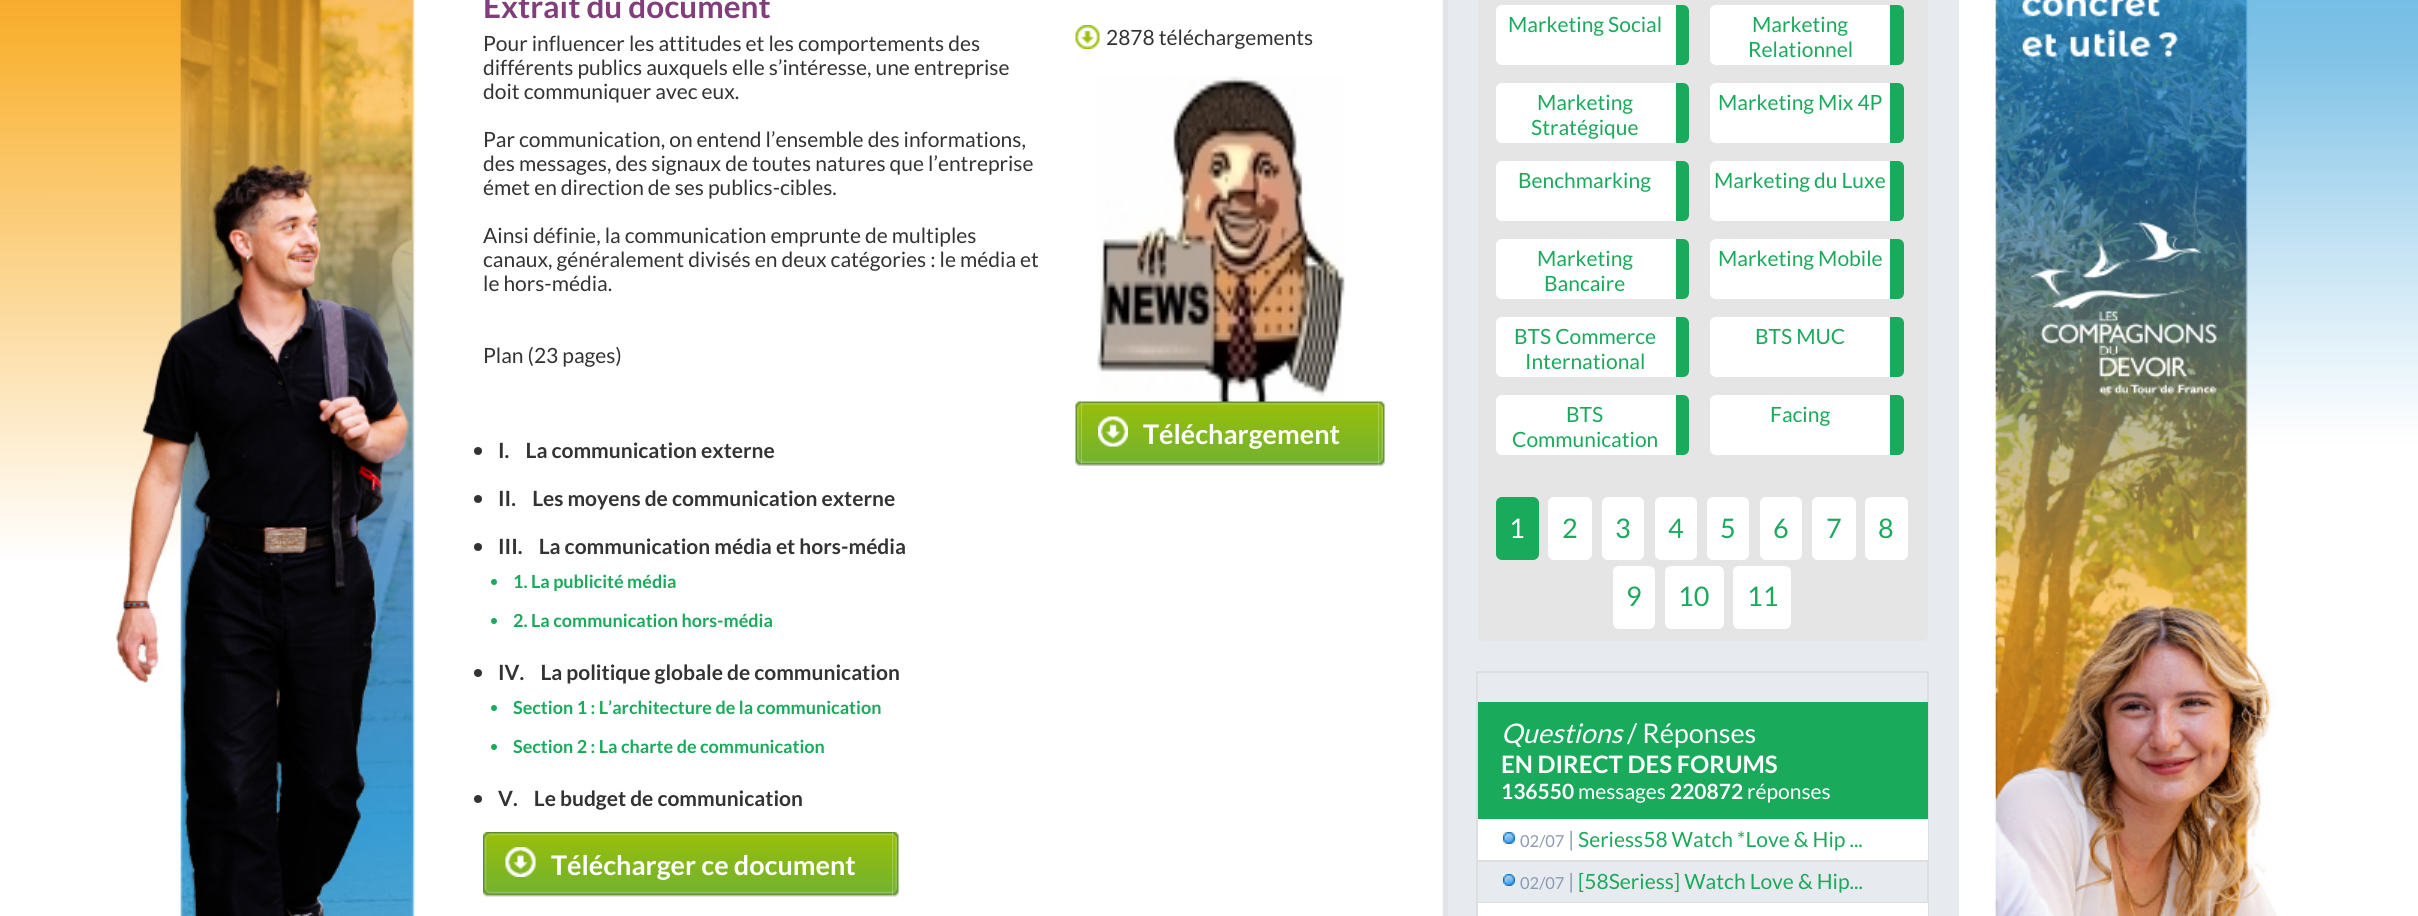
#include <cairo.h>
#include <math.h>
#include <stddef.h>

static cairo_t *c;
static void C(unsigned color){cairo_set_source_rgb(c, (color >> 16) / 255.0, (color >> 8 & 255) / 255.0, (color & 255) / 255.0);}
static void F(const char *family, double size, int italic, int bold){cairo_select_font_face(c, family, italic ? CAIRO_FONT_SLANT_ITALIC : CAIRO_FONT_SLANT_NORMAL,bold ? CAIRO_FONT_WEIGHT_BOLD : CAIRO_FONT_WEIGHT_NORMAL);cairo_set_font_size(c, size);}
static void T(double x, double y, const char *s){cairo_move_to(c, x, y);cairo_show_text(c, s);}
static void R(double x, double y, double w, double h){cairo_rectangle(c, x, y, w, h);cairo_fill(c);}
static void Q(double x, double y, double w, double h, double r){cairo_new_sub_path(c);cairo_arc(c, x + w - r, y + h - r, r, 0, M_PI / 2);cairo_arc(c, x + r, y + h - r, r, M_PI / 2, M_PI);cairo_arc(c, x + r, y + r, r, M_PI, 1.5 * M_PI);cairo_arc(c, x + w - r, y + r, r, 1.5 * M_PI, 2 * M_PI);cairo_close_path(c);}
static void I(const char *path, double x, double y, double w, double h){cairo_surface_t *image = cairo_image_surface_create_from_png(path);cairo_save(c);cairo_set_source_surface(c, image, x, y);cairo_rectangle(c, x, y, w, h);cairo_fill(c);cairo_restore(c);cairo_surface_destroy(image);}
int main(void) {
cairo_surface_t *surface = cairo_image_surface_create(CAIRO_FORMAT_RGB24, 2418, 916);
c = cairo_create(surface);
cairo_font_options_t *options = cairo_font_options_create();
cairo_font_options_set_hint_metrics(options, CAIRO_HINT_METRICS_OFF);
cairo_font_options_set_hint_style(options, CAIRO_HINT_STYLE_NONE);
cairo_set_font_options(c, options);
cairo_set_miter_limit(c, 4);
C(0xffffff);
cairo_paint(c);
I("1.png",0,0,2418,916);
I("2.png",459,0,986,916);
F("Lato",31.5,0,1);
C(0x813e7b);
T(483,18,"Extrait du document");
F("Lato",21,0,0);
C(0x333333);
T(483,51,"Pour influencer les attitudes et les comportements des");
T(483,75,"différents publics auxquels elle s’intéresse, une entreprise");
T(483,99,"doit communiquer avec eux.");
T(483,147,"Par communication, on entend l’ensemble des informations,");
T(483,171,"des messages, des signaux de toutes natures que l’entreprise");
T(483,195,"émet en direction de ses publics-cibles.");
T(483,243,"Ainsi définie, la communication emprunte de multiples");
T(483,267,"canaux, généralement divisés en deux catégories : le média et");
T(483,291,"le hors-média.");
T(483,363,"Plan (23 pages)");
cairo_new_path(c);
cairo_arc(c,478,451,4,0,2 * M_PI);
cairo_fill(c);
F("Lato",21,0,1);
T(498,458,"I.    La communication externe");
cairo_new_path(c);
cairo_arc(c,478,499,4,0,2 * M_PI);
cairo_fill(c);
T(498,506,"II.    Les moyens de communication externe");
cairo_new_path(c);
cairo_arc(c,478,547,4,0,2 * M_PI);
cairo_fill(c);
T(498,554,"III.    La communication média et hors-média");
C(0x1aaa5b);
cairo_new_path(c);
cairo_arc(c,494,582,3,0,2 * M_PI);
cairo_fill(c);
F("Lato",18,0,1);
T(513,588,"1. La publicité média");
cairo_new_path(c);
cairo_arc(c,494,621,3,0,2 * M_PI);
cairo_fill(c);
T(513,627,"2. La communication hors-média");
C(0x333333);
cairo_new_path(c);
cairo_arc(c,478,673,4,0,2 * M_PI);
cairo_fill(c);
F("Lato",21,0,1);
T(498,680,"IV.    La politique globale de communication");
C(0x1aaa5b);
cairo_new_path(c);
cairo_arc(c,494,708,3,0,2 * M_PI);
cairo_fill(c);
F("Lato",18,0,1);
T(513,714,"Section 1 : L’architecture de la communication");
cairo_new_path(c);
cairo_arc(c,494,747,3,0,2 * M_PI);
cairo_fill(c);
T(513,753,"Section 2 : La charte de communication");
C(0x333333);
cairo_new_path(c);
cairo_arc(c,478,799,4,0,2 * M_PI);
cairo_fill(c);
F("Lato",21,0,1);
T(498,806,"V.    Le budget de communication");
I("3.png",1075,25,25,24);
F("Lato",21,0,0);
T(1106,45,"2878 téléchargements");
I("4.png",1097,76,248,326);
I("5.png",1075,401,7,65);
I("6.png",1081,401,298,65);
I("7.png",1098,416,30,31);
F("Lato",27,0,1);
C(0xffffff);
T(1143,444,"Téléchargement");
I("8.png",1378,401,7,65);
I("9.png",483,832,6,65);
I("10.png",489,832,404,65);
I("11.png",505,847,31,30);
T(551,875,"Télécharger ce document");
I("12.png",892,832,7,65);
C(0xe7eaee);
R(1448,0,511,916);
C(0xe0e2e8);
R(1445,0,3,916);
C(0xe5e5e5);
cairo_new_path(c);
cairo_move_to(c,1478,-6);
cairo_line_to(c,1928,-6);
cairo_line_to(c,1928,635);
cairo_curve_to(c,1928,638.5,1925.5,641,1922,641);
cairo_line_to(c,1484,641);
cairo_curve_to(c,1480.5,641,1478,638.5,1478,635);
cairo_close_path(c);
cairo_fill(c);
C(0xffffff);
Q(1496,5,193,60,6);
cairo_fill(c);
C(0x1aaa5b);
cairo_new_path(c);
cairo_move_to(c,1676,5);
cairo_line_to(c,1683,5);
cairo_curve_to(c,1686.5,5,1689,7.5,1689,11);
cairo_line_to(c,1689,59);
cairo_curve_to(c,1689,62.5,1686.5,65,1683,65);
cairo_line_to(c,1676,65);
cairo_close_path(c);
cairo_fill(c);
F("Lato",21,0,0);
T(1508,32,"Marketing Social");
C(0xffffff);
Q(1710,5,194,60,6);
cairo_fill(c);
C(0x1aaa5b);
cairo_new_path(c);
cairo_move_to(c,1890,5);
cairo_line_to(c,1898,5);
cairo_curve_to(c,1901.5,5,1904,7.5,1904,11);
cairo_line_to(c,1904,59);
cairo_curve_to(c,1904,62.5,1901.5,65,1898,65);
cairo_line_to(c,1890,65);
cairo_close_path(c);
cairo_fill(c);
T(1752,32,"Marketing");
T(1748,57,"Relationnel");
C(0xffffff);
Q(1496,83,193,60,6);
cairo_fill(c);
C(0x1aaa5b);
cairo_new_path(c);
cairo_move_to(c,1676,83);
cairo_line_to(c,1683,83);
cairo_curve_to(c,1686.5,83,1689,85.5,1689,89);
cairo_line_to(c,1689,137);
cairo_curve_to(c,1689,140.5,1686.5,143,1683,143);
cairo_line_to(c,1676,143);
cairo_close_path(c);
cairo_fill(c);
T(1537,110,"Marketing");
T(1531,135,"Stratégique");
C(0xffffff);
Q(1710,83,194,60,6);
cairo_fill(c);
C(0x1aaa5b);
cairo_new_path(c);
cairo_move_to(c,1890,83);
cairo_line_to(c,1898,83);
cairo_curve_to(c,1901.5,83,1904,85.5,1904,89);
cairo_line_to(c,1904,137);
cairo_curve_to(c,1904,140.5,1901.5,143,1898,143);
cairo_line_to(c,1890,143);
cairo_close_path(c);
cairo_fill(c);
T(1718,110,"Marketing Mix 4P");
C(0xffffff);
Q(1496,161,193,60,6);
cairo_fill(c);
C(0x1aaa5b);
cairo_new_path(c);
cairo_move_to(c,1676,161);
cairo_line_to(c,1683,161);
cairo_curve_to(c,1686.5,161,1689,163.5,1689,167);
cairo_line_to(c,1689,215);
cairo_curve_to(c,1689,218.5,1686.5,221,1683,221);
cairo_line_to(c,1676,221);
cairo_close_path(c);
cairo_fill(c);
T(1518,188,"Benchmarking");
C(0xffffff);
Q(1710,161,194,60,6);
cairo_fill(c);
C(0x1aaa5b);
cairo_new_path(c);
cairo_move_to(c,1890,161);
cairo_line_to(c,1898,161);
cairo_curve_to(c,1901.5,161,1904,163.5,1904,167);
cairo_line_to(c,1904,215);
cairo_curve_to(c,1904,218.5,1901.5,221,1898,221);
cairo_line_to(c,1890,221);
cairo_close_path(c);
cairo_fill(c);
T(1714,188,"Marketing du Luxe");
C(0xffffff);
Q(1496,239,193,60,6);
cairo_fill(c);
C(0x1aaa5b);
cairo_new_path(c);
cairo_move_to(c,1676,239);
cairo_line_to(c,1683,239);
cairo_curve_to(c,1686.5,239,1689,241.5,1689,245);
cairo_line_to(c,1689,293);
cairo_curve_to(c,1689,296.5,1686.5,299,1683,299);
cairo_line_to(c,1676,299);
cairo_close_path(c);
cairo_fill(c);
T(1537,266,"Marketing");
T(1544,291,"Bancaire");
C(0xffffff);
Q(1710,239,194,60,6);
cairo_fill(c);
C(0x1aaa5b);
cairo_new_path(c);
cairo_move_to(c,1890,239);
cairo_line_to(c,1898,239);
cairo_curve_to(c,1901.5,239,1904,241.5,1904,245);
cairo_line_to(c,1904,293);
cairo_curve_to(c,1904,296.5,1901.5,299,1898,299);
cairo_line_to(c,1890,299);
cairo_close_path(c);
cairo_fill(c);
T(1718,266,"Marketing Mobile");
C(0xffffff);
Q(1496,317,193,60,6);
cairo_fill(c);
C(0x1aaa5b);
cairo_new_path(c);
cairo_move_to(c,1676,317);
cairo_line_to(c,1683,317);
cairo_curve_to(c,1686.5,317,1689,319.5,1689,323);
cairo_line_to(c,1689,371);
cairo_curve_to(c,1689,374.5,1686.5,377,1683,377);
cairo_line_to(c,1676,377);
cairo_close_path(c);
cairo_fill(c);
T(1514,344,"BTS Commerce");
T(1525,369,"International");
C(0xffffff);
Q(1710,317,194,60,6);
cairo_fill(c);
C(0x1aaa5b);
cairo_new_path(c);
cairo_move_to(c,1890,317);
cairo_line_to(c,1898,317);
cairo_curve_to(c,1901.5,317,1904,319.5,1904,323);
cairo_line_to(c,1904,371);
cairo_curve_to(c,1904,374.5,1901.5,377,1898,377);
cairo_line_to(c,1890,377);
cairo_close_path(c);
cairo_fill(c);
T(1755,344,"BTS MUC");
C(0xffffff);
Q(1496,395,193,60,6);
cairo_fill(c);
C(0x1aaa5b);
cairo_new_path(c);
cairo_move_to(c,1676,395);
cairo_line_to(c,1683,395);
cairo_curve_to(c,1686.5,395,1689,397.5,1689,401);
cairo_line_to(c,1689,449);
cairo_curve_to(c,1689,452.5,1686.5,455,1683,455);
cairo_line_to(c,1676,455);
cairo_close_path(c);
cairo_fill(c);
T(1566,422,"BTS");
T(1512,447,"Communication");
C(0xffffff);
Q(1710,395,194,60,6);
cairo_fill(c);
C(0x1aaa5b);
cairo_new_path(c);
cairo_move_to(c,1890,395);
cairo_line_to(c,1898,395);
cairo_curve_to(c,1901.5,395,1904,397.5,1904,401);
cairo_line_to(c,1904,449);
cairo_curve_to(c,1904,452.5,1901.5,455,1898,455);
cairo_line_to(c,1890,455);
cairo_close_path(c);
cairo_fill(c);
T(1770,422,"Facing");
Q(1496,497,43,63,6);
cairo_fill(c);
F("Lato",27,0,0);
C(0xffffff);
T(1509,538,"1");
Q(1548,497,44,63,6);
cairo_fill(c);
C(0x1aaa5b);
T(1562,538,"2");
C(0xffffff);
Q(1602,497,42,63,6);
cairo_fill(c);
C(0x1aaa5b);
T(1615,538,"3");
C(0xffffff);
Q(1655,497,42,63,6);
cairo_fill(c);
C(0x1aaa5b);
T(1668,538,"4");
C(0xffffff);
Q(1707,497,42,63,6);
cairo_fill(c);
C(0x1aaa5b);
T(1720,538,"5");
C(0xffffff);
Q(1760,497,42,63,6);
cairo_fill(c);
C(0x1aaa5b);
T(1773,538,"6");
C(0xffffff);
Q(1812,497,44,63,6);
cairo_fill(c);
C(0x1aaa5b);
T(1826,538,"7");
C(0xffffff);
Q(1865,497,43,63,6);
cairo_fill(c);
C(0x1aaa5b);
T(1878,538,"8");
C(0xffffff);
Q(1613,566,42,63,6);
cairo_fill(c);
C(0x1aaa5b);
T(1626,606,"9");
C(0xffffff);
Q(1665,566,59,63,6);
cairo_fill(c);
C(0x1aaa5b);
T(1678,606,"10");
C(0xffffff);
Q(1733,566,58,63,6);
cairo_fill(c);
C(0x1aaa5b);
T(1747,606,"11");
cairo_rectangle(c,1477,672,451,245);
C(0xdedede);
cairo_stroke(c);
C(0x1aaa5b);
R(1478,702,450,117);
F("Lato",27,1,0);
C(0xffffff);
T(1501,743,"Questions");
F("Lato",27,0,0);
T(1627,743,"/ Réponses");
F("Lato",24,0,1);
T(1501,773,"EN DIRECT DES FORUMS");
F("Lato",21,0,1);
T(1501,799,"136550");
F("Lato",21,0,0);
T(1578,799,"messages");
F("Lato",21,0,1);
T(1670,799,"220872");
F("Lato",21,0,0);
T(1747,799,"réponses");
R(1478,819,450,41);
I("13.png",1503,832,12,12);
C(0xdedede);
R(1478,860,450,2);
F("Lato",16.5,0,0);
C(0x8c9ab4);
T(1520,847,"02/07");
F("Lato",21,0,0);
T(1568,847,"|");
C(0x1aaa5b);
T(1578,847,"Seriess58 Watch *Love & Hip ...");
I("13.png",1503,874,12,12);
C(0xdedede);
R(1478,902,450,1);
F("Lato",16.5,0,0);
C(0x8c9ab4);
T(1520,889,"02/07");
F("Lato",21,0,0);
T(1568,889,"|");
C(0x1aaa5b);
T(1578,889,"[58Seriess] Watch Love & Hip...");
C(0xffffff);
R(1478,903,450,13);
cairo_surface_write_to_png(surface, "o.png");
cairo_font_options_destroy(options);
cairo_destroy(c);
cairo_surface_destroy(surface);
return 0;
}
